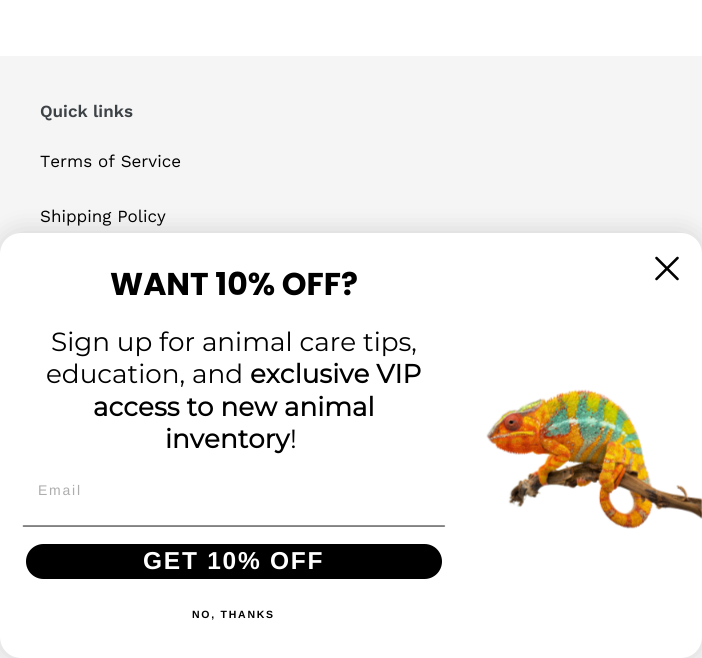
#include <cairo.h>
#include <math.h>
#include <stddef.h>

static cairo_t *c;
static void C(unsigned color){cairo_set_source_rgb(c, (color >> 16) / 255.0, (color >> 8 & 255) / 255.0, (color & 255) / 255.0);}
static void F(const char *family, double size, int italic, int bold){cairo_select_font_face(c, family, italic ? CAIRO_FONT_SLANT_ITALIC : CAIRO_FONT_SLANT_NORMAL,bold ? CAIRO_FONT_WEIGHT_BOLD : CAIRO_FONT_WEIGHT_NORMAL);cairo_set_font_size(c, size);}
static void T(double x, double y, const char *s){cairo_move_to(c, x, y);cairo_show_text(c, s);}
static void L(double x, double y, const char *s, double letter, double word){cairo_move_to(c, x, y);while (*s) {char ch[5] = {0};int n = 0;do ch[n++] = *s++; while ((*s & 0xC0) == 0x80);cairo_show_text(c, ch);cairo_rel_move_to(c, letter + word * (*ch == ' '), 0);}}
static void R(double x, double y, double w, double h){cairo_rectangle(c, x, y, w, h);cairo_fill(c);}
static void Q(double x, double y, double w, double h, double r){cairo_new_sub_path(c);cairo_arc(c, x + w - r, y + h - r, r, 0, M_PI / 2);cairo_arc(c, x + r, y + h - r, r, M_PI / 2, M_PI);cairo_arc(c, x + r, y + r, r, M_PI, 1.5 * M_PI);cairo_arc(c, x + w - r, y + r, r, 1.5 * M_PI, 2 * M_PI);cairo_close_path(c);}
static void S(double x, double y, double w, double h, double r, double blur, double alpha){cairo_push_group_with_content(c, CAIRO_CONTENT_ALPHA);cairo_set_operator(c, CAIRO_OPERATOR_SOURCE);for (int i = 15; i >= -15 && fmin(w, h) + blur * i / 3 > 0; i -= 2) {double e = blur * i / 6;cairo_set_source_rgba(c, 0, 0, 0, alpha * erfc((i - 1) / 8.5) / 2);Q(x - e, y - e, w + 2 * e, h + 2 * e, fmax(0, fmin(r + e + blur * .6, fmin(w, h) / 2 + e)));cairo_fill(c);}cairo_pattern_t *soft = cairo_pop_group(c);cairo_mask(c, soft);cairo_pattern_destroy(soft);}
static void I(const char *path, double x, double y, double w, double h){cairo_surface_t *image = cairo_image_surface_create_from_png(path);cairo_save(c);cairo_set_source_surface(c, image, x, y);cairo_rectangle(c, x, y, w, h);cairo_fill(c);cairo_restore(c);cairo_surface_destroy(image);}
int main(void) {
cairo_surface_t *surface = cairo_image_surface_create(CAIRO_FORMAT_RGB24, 702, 658);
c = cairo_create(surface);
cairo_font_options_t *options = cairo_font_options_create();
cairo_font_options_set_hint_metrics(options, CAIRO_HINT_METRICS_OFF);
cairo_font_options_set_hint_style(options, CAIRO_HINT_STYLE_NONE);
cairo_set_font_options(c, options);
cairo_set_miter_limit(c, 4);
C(0xffffff);
cairo_paint(c);
C(0xf5f5f5);
R(0,56,702,602);
F("Work Sans SemiBold",17,0,0);
C(0x3d4246);
T(40,117,"Quick links");
F("Work Sans",17,0,0);
C(0x000000);
T(40,167,"Terms of Service");
T(40,222,"Shipping Policy");
C(0x000000);
S(0,233,702,425,21,13,.15);
C(0xffffff);
Q(0,233,702,425,21);
cairo_fill(c);
cairo_new_path(c);
cairo_move_to(c,656.5,258);
cairo_line_to(c,677.5,279);
cairo_move_to(c,656.5,279);
cairo_line_to(c,677.5,258);
cairo_close_path(c);
C(0x000000);
cairo_set_line_width(c,2.6);
cairo_set_line_cap(c,CAIRO_LINE_CAP_ROUND);
cairo_set_line_join(c,CAIRO_LINE_JOIN_ROUND);
cairo_stroke(c);
F("Poppins",31.5,0,1);
T(110,295,"WANT 10% OFF?");
F("Montserrat Thin",26.25,0,0);
T(51,351,"Sign up for animal care tips,");
T(46,383,"education, and");
F("Montserrat",26.25,0,1);
T(250,383,"exclusive VIP");
T(93,416,"access to new animal");
T(165,448,"inventory");
F("Montserrat Thin",26.25,0,0);
T(290,448,"!");
F("Liberation Sans",14,0,0);
C(0xadadad);
L(38,495,"Email",1.75,0);
I("1.png",22,525,424,2);
C(0x000000);
Q(26,544,416,35,17.5);
cairo_fill(c);
F("Liberation Sans",24.5,0,1);
C(0xffffff);
L(143,569,"GET 10% OFF",1.75,0);
F("Liberation Sans",10.5,0,1);
C(0x000000);
L(192,618,"NO, THANKS",1.75,0);
I("2.png",486,389,216,140);
cairo_surface_write_to_png(surface, "o.png");
cairo_font_options_destroy(options);
cairo_destroy(c);
cairo_surface_destroy(surface);
return 0;
}
